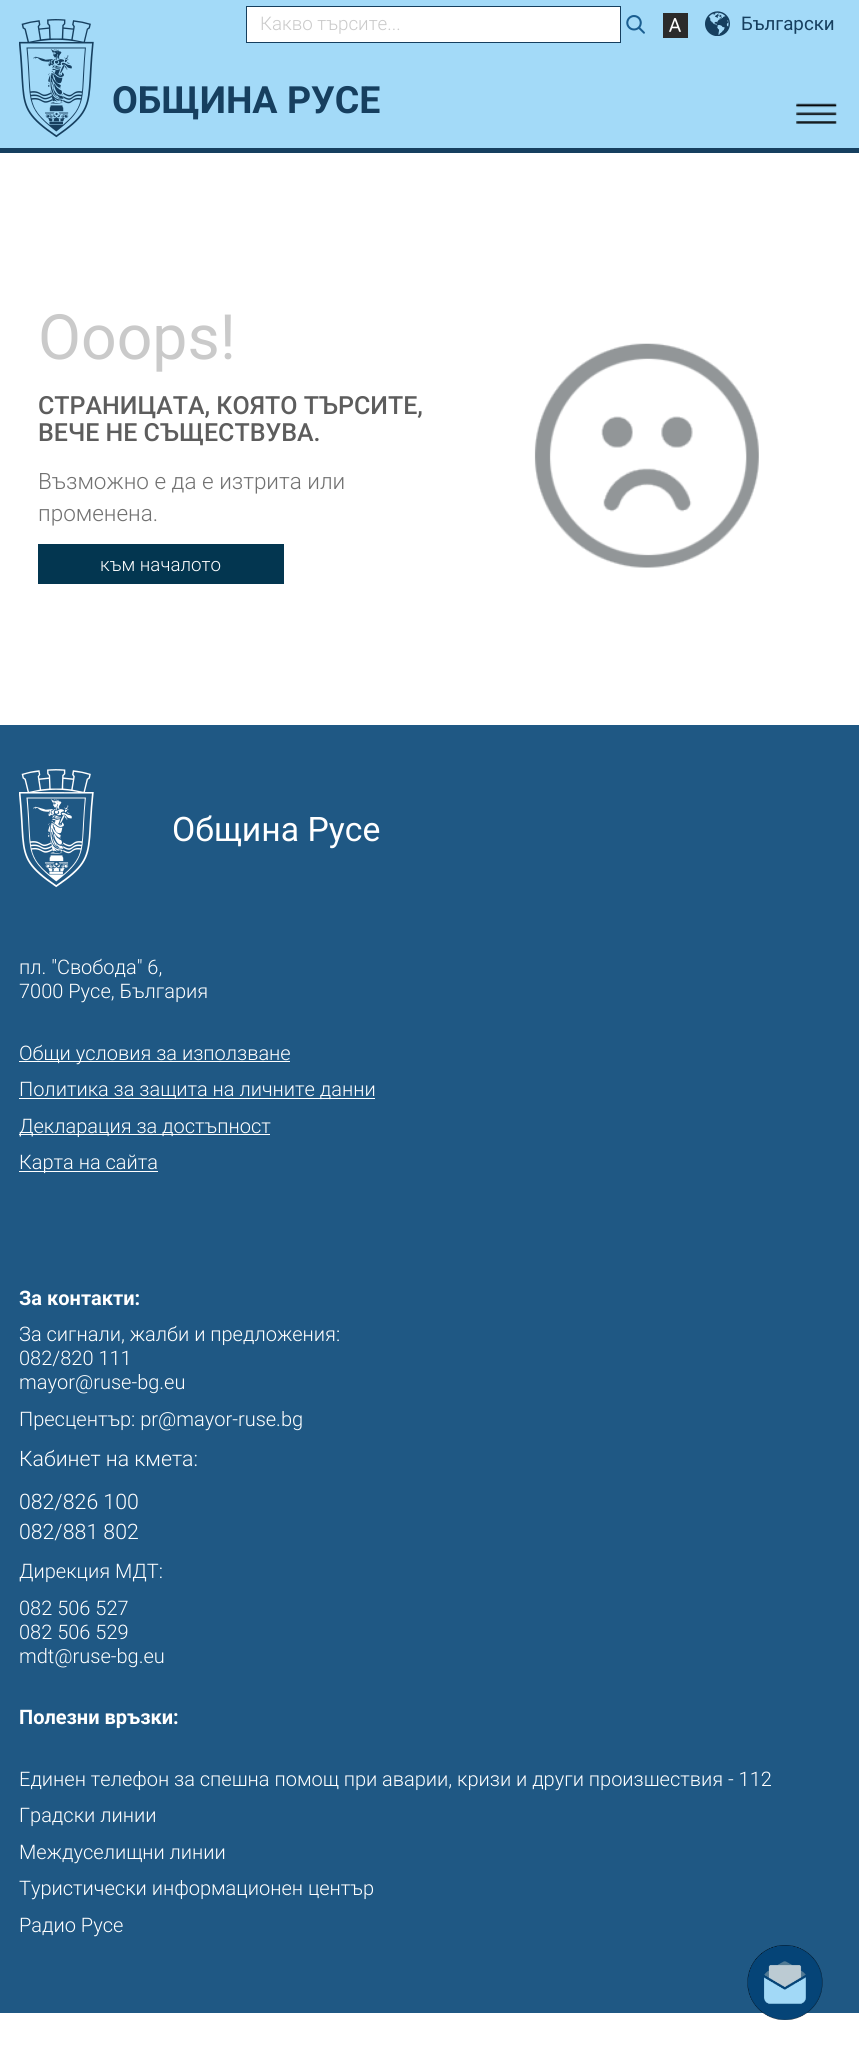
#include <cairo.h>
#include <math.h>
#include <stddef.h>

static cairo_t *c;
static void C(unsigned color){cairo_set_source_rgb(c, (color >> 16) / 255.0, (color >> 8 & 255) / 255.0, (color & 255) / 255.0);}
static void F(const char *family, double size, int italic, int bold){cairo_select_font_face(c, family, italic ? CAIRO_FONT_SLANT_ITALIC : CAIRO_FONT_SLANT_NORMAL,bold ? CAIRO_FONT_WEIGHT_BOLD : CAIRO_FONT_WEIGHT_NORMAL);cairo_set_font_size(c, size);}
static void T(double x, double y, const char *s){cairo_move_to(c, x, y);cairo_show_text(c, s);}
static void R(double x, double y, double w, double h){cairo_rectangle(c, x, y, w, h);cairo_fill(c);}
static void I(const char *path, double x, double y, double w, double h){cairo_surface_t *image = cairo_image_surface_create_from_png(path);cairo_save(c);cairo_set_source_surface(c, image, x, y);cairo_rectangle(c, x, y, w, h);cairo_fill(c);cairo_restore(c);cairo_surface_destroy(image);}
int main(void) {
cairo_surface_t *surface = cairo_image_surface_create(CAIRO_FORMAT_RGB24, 859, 2057);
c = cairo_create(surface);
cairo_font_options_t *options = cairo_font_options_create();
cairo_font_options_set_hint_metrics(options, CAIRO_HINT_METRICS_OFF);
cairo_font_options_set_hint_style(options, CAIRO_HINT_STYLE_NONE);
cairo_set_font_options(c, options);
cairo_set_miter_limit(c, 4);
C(0xffffff);
cairo_paint(c);
C(0xa3daf8);
R(0,0,859,148);
C(0x163f5f);
R(0,148,859,5);
C(0xffffff);
cairo_rectangle(c,246.5,6.5,374,36);
cairo_fill_preserve(c);
C(0x163f5f);
cairo_set_line_width(c,1);
cairo_stroke(c);
F("Roboto Light",18.75,0,0);
C(0xcacaca);
T(260,30,"Какво търсите...");
I("1.png",626,15,19,19);
I("2.png",663,13,25,25);
I("3.png",705,11,25,25);
F("Roboto",18.75,0,0);
C(0x163f5f);
T(741,30,"Български");
I("4.png",19,19,75,119);
F("Roboto",37.5,0,1);
T(112,113,"ОБЩИНА РУСЕ");
I("5.png",796,103,41,21);
F("Roboto",62.5,0,0);
C(0xcacaca);
T(38,359,"Ooops!");
F("Roboto Medium",25,0,0);
C(0x5d5d5d);
T(38,414,"СТРАНИЦАТА, КОЯТО ТЪРСИТЕ,");
T(38,441,"ВЕЧЕ НЕ СЪЩЕСТВУВА.");
F("Roboto Light",22.5,0,0);
C(0x717171);
T(38,489,"Възможно е да е изтрита или");
T(38,521,"променена.");
C(0x033650);
R(38,544,246,40);
F("Roboto Light",18.75,0,0);
C(0xffffff);
T(100,571,"към началото");
I("6.png",534,343,225,225);
C(0x1f5884);
R(0,725,859,1288);
I("7.png",19,769,75,119);
F("Roboto",33.75,0,0);
C(0xffffff);
T(172,841,"Община Русе");
F("Roboto Light",20,0,0);
T(19,974,"пл. \"Свобода\" 6,");
T(19,998,"7000 Русе, България");
R(19,1061,271,1);
T(19,1060,"Общи условия за използване");
R(19,1098,356,1);
T(19,1096,"Политика за защита на личните данни");
R(19,1134,251,1);
T(19,1133,"Декларация за достъпност");
R(19,1171,139,1);
T(19,1169,"Карта на сайта");
F("Roboto",20,0,1);
T(19,1305,"За контакти:");
F("Roboto Light",20,0,0);
T(19,1341,"За сигнали, жалби и предложения:");
T(19,1365,"082/820 111");
T(19,1389,"mayor@ruse-bg.eu");
T(19,1426,"Пресцентър: pr@mayor-ruse.bg");
F("Roboto Light",21.25,0,0);
T(19,1466,"Кабинет на кмета:");
T(19,1509,"082/826 100");
T(19,1539,"082/881 802");
F("Roboto Light",20,0,0);
T(19,1578,"Дирекция МДТ:");
T(19,1615,"082 506 527");
T(19,1639,"082 506 529");
T(19,1663,"mdt@ruse-bg.eu");
F("Roboto",20,0,1);
T(19,1724,"Полезни връзки:");
F("Roboto Light",20,0,0);
T(19,1786,"Единен телефон за спешна помощ при аварии, кризи и други произшествия - 112");
T(19,1822,"Градски линии");
T(19,1859,"Междуселищни линии");
T(19,1895,"Туристически информационен център");
T(19,1932,"Радио Русе");
I("8.png",747,1945,76,75);
cairo_surface_write_to_png(surface, "o.png");
cairo_font_options_destroy(options);
cairo_destroy(c);
cairo_surface_destroy(surface);
return 0;
}
